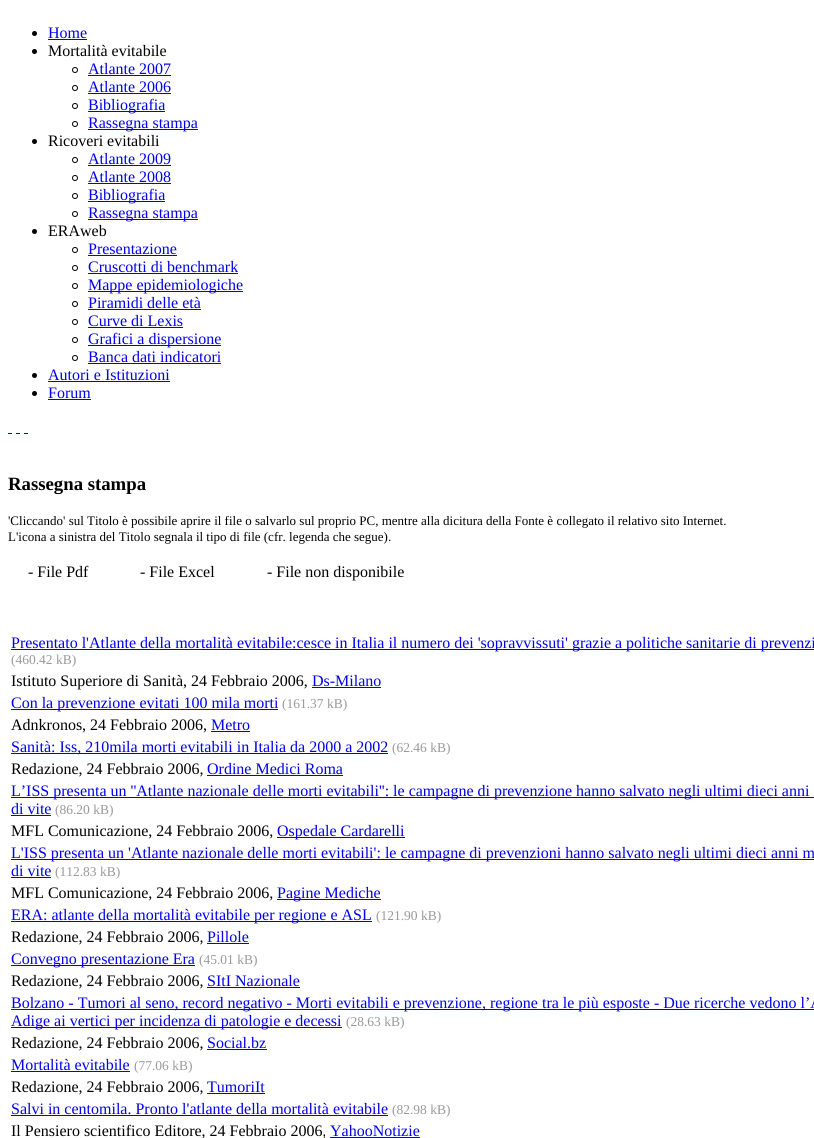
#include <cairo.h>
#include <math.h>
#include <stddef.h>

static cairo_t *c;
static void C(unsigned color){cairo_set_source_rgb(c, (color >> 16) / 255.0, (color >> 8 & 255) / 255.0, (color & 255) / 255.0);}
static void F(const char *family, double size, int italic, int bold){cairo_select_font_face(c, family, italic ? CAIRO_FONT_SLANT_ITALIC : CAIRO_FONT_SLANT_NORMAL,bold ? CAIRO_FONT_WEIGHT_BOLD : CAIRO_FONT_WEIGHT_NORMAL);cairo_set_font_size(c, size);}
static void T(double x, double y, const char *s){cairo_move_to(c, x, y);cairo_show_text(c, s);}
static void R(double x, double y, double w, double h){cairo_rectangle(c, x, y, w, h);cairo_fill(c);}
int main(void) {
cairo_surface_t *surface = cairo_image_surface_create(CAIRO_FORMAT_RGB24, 814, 1138);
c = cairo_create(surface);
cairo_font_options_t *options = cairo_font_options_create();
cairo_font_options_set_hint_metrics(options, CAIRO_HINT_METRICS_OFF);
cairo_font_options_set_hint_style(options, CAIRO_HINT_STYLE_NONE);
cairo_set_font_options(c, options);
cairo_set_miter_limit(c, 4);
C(0xffffff);
cairo_paint(c);
C(0x000000);
cairo_arc(c,34.5,33.5,2.5,0,2 * M_PI);
cairo_fill(c);
F("Liberation Serif",16,0,0);
C(0x0000ee);
T(48,38,"Home");
R(48,39,39,1);
C(0x000000);
cairo_new_path(c);
cairo_arc(c,34.5,51.5,2.5,0,2 * M_PI);
cairo_fill(c);
T(48,56,"Mortalità evitabile");
cairo_new_path(c);
cairo_arc(c,75,70,2.5,0,2 * M_PI);
cairo_set_line_width(c,1);
cairo_stroke(c);
C(0x0000ee);
T(88,74,"Atlante 2007");
R(88,75,83,1);
cairo_new_path(c);
cairo_arc(c,75,88,2.5,0,2 * M_PI);
C(0x000000);
cairo_stroke(c);
C(0x0000ee);
T(88,92,"Atlante 2006");
R(88,93,83,1);
cairo_new_path(c);
cairo_arc(c,75,106,2.5,0,2 * M_PI);
C(0x000000);
cairo_stroke(c);
C(0x0000ee);
R(88,111,77,1);
T(88,110,"Bibliografia");
cairo_new_path(c);
cairo_arc(c,75,124,2.5,0,2 * M_PI);
C(0x000000);
cairo_stroke(c);
C(0x0000ee);
R(88,129,110,1);
T(88,128,"Rassegna stampa");
C(0x000000);
cairo_new_path(c);
cairo_arc(c,34.5,141.5,2.5,0,2 * M_PI);
cairo_fill(c);
T(48,146,"Ricoveri evitabili");
cairo_new_path(c);
cairo_arc(c,75,160,2.5,0,2 * M_PI);
cairo_stroke(c);
C(0x0000ee);
T(88,164,"Atlante 2009");
R(88,165,83,1);
cairo_new_path(c);
cairo_arc(c,75,178,2.5,0,2 * M_PI);
C(0x000000);
cairo_stroke(c);
C(0x0000ee);
T(88,182,"Atlante 2008");
R(88,183,83,1);
cairo_new_path(c);
cairo_arc(c,75,196,2.5,0,2 * M_PI);
C(0x000000);
cairo_stroke(c);
C(0x0000ee);
R(88,201,77,1);
T(88,200,"Bibliografia");
cairo_new_path(c);
cairo_arc(c,75,214,2.5,0,2 * M_PI);
C(0x000000);
cairo_stroke(c);
C(0x0000ee);
R(88,219,110,1);
T(88,218,"Rassegna stampa");
C(0x000000);
cairo_new_path(c);
cairo_arc(c,34.5,231.5,2.5,0,2 * M_PI);
cairo_fill(c);
T(48,236,"ERAweb");
cairo_new_path(c);
cairo_arc(c,75,250,2.5,0,2 * M_PI);
cairo_stroke(c);
C(0x0000ee);
T(88,254,"Presentazione");
R(88,255,89,1);
cairo_new_path(c);
cairo_arc(c,75,268,2.5,0,2 * M_PI);
C(0x000000);
cairo_stroke(c);
C(0x0000ee);
T(88,272,"Cruscotti di benchmark");
R(88,273,150,1);
cairo_new_path(c);
cairo_arc(c,75,286,2.5,0,2 * M_PI);
C(0x000000);
cairo_stroke(c);
C(0x0000ee);
R(88,291,155,1);
T(88,290,"Mappe epidemiologiche");
cairo_new_path(c);
cairo_arc(c,75,304,2.5,0,2 * M_PI);
C(0x000000);
cairo_stroke(c);
C(0x0000ee);
T(88,308,"Piramidi delle età");
R(88,309,113,1);
cairo_new_path(c);
cairo_arc(c,75,322,2.5,0,2 * M_PI);
C(0x000000);
cairo_stroke(c);
C(0x0000ee);
T(88,326,"Curve di Lexis");
R(88,327,95,1);
cairo_new_path(c);
cairo_arc(c,75,340,2.5,0,2 * M_PI);
C(0x000000);
cairo_stroke(c);
C(0x0000ee);
R(88,345,133,1);
T(88,344,"Grafici a dispersione");
cairo_new_path(c);
cairo_arc(c,75,358,2.5,0,2 * M_PI);
C(0x000000);
cairo_stroke(c);
C(0x0000ee);
T(88,362,"Banca dati indicatori");
R(88,363,133,1);
C(0x000000);
cairo_new_path(c);
cairo_arc(c,34.5,375.5,2.5,0,2 * M_PI);
cairo_fill(c);
C(0x0000ee);
T(48,380,"Autori e Istituzioni");
R(48,381,122,1);
C(0x000000);
cairo_new_path(c);
cairo_arc(c,34.5,393.5,2.5,0,2 * M_PI);
cairo_fill(c);
C(0x0000ee);
T(48,398,"Forum");
R(48,399,43,1);
R(8,433,4,1);
R(16,433,4,1);
R(24,433,4,1);
F("Liberation Serif",18.75,0,1);
C(0x000000);
T(8,490,"Rassegna stampa");
F("Liberation Serif",13,0,0);
T(8,525,"'Cliccando' sul Titolo è possibile aprire il file o salvarlo sul proprio PC, mentre alla dicitura della Fonte è collegato il relativo sito Internet.");
T(8,541,"L'icona a sinistra del Titolo segnala il tipo di file (cfr. legenda che segue).");
F("Liberation Serif",16,0,0);
T(28,577,"- File Pdf");
T(140,577,"- File Excel");
T(267,577,"- File non disponibile");
C(0x0000ee);
R(11,649,803,1);
T(11,648,"Presentato l'Atlante della mortalità evitabile:cesce in Italia il numero dei 'sopravvissuti' grazie a politiche sanitarie di prevenzi");
F("Liberation Serif",13.5,0,0);
C(0x999999);
T(11,664,"(460.42 kB)");
F("Liberation Serif",16,0,0);
C(0x000000);
T(11,686,"Istituto Superiore di Sanità, 24 Febbraio 2006,");
C(0x0000ee);
T(312,686,"Ds-Milano");
R(312,687,69,1);
R(11,709,267,1);
T(11,708,"Con la prevenzione evitati 100 mila morti");
F("Liberation Serif",13.5,0,0);
C(0x999999);
T(282,708,"(161.37 kB)");
F("Liberation Serif",16,0,0);
C(0x000000);
T(11,730,"Adnkronos, 24 Febbraio 2006,");
C(0x0000ee);
T(211,730,"Metro");
R(211,731,39,1);
R(11,753,377,1);
T(11,752,"Sanità: Iss, 210mila morti evitabili in Italia da 2000 a 2002");
F("Liberation Serif",13.5,0,0);
C(0x999999);
T(392,752,"(62.46 kB)");
F("Liberation Serif",16,0,0);
C(0x000000);
T(11,774,"Redazione, 24 Febbraio 2006,");
C(0x0000ee);
T(207,774,"Ordine Medici Roma");
R(207,775,136,1);
R(11,797,803,1);
T(11,796,"L’ISS presenta un ''Atlante nazionale delle morti evitabili'': le campagne di prevenzione hanno salvato negli ultimi dieci anni");
T(11,814,"di vite");
R(11,815,40,1);
F("Liberation Serif",13.5,0,0);
C(0x999999);
T(55,814,"(86.20 kB)");
F("Liberation Serif",16,0,0);
C(0x000000);
T(11,836,"MFL Comunicazione, 24 Febbraio 2006,");
C(0x0000ee);
R(277,837,128,1);
T(277,836,"Ospedale Cardarelli");
R(11,859,803,1);
T(11,858,"L'ISS presenta un 'Atlante nazionale delle morti evitabili': le campagne di prevenzioni hanno salvato negli ultimi dieci anni m");
T(11,876,"di vite");
R(11,877,40,1);
F("Liberation Serif",13.5,0,0);
C(0x999999);
T(55,876,"(112.83 kB)");
F("Liberation Serif",16,0,0);
C(0x000000);
T(11,898,"MFL Comunicazione, 24 Febbraio 2006,");
C(0x0000ee);
R(277,899,104,1);
T(277,898,"Pagine Mediche");
R(11,921,361,1);
T(11,920,"ERA: atlante della mortalità evitabile per regione e ASL");
F("Liberation Serif",13.5,0,0);
C(0x999999);
T(376,920,"(121.90 kB)");
F("Liberation Serif",16,0,0);
C(0x000000);
T(11,942,"Redazione, 24 Febbraio 2006,");
C(0x0000ee);
T(207,942,"Pillole");
R(207,943,42,1);
R(11,965,184,1);
T(11,964,"Convegno presentazione Era");
F("Liberation Serif",13.5,0,0);
C(0x999999);
T(199,964,"(45.01 kB)");
F("Liberation Serif",16,0,0);
C(0x000000);
T(11,986,"Redazione, 24 Febbraio 2006,");
C(0x0000ee);
T(207,986,"SItI Nazionale");
R(207,987,93,1);
R(11,1009,803,1);
T(11,1008,"Bolzano - Tumori al seno, record negativo - Morti evitabili e prevenzione, regione tra le più esposte - Due ricerche vedono l’A");
R(11,1027,331,1);
T(11,1026,"Adige ai vertici per incidenza di patologie e decessi");
F("Liberation Serif",13.5,0,0);
C(0x999999);
T(346,1026,"(28.63 kB)");
F("Liberation Serif",16,0,0);
C(0x000000);
T(11,1048,"Redazione, 24 Febbraio 2006,");
C(0x0000ee);
T(207,1048,"Social.bz");
R(207,1049,60,1);
T(11,1070,"Mortalità evitabile");
R(11,1071,119,1);
F("Liberation Serif",13.5,0,0);
C(0x999999);
T(134,1070,"(77.06 kB)");
F("Liberation Serif",16,0,0);
C(0x000000);
T(11,1092,"Redazione, 24 Febbraio 2006,");
C(0x0000ee);
T(207,1092,"TumoriIt");
R(207,1093,58,1);
T(11,1114,"Salvi in centomila. Pronto l'atlante della mortalità evitabile");
R(11,1115,377,1);
F("Liberation Serif",13.5,0,0);
C(0x999999);
T(392,1114,"(82.98 kB)");
F("Liberation Serif",16,0,0);
C(0x000000);
T(11,1136,"Il Pensiero scientifico Editore, 24 Febbraio 2006,");
C(0x0000ee);
T(330,1136,"YahooNotizie");
R(330,1137,90,1);
cairo_surface_write_to_png(surface, "o.png");
cairo_font_options_destroy(options);
cairo_destroy(c);
cairo_surface_destroy(surface);
return 0;
}
